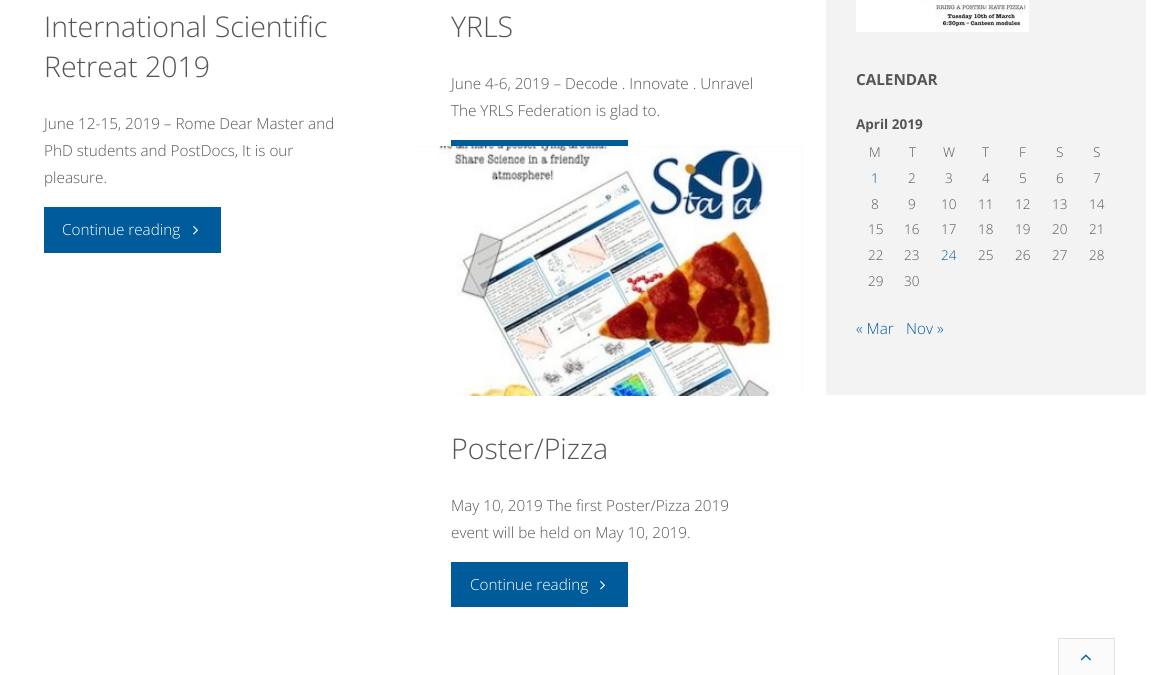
#include <cairo.h>
#include <math.h>
#include <stddef.h>

static cairo_t *c;
static void C(unsigned color){cairo_set_source_rgb(c, (color >> 16) / 255.0, (color >> 8 & 255) / 255.0, (color & 255) / 255.0);}
static void F(const char *family, double size, int italic, int bold){cairo_select_font_face(c, family, italic ? CAIRO_FONT_SLANT_ITALIC : CAIRO_FONT_SLANT_NORMAL,bold ? CAIRO_FONT_WEIGHT_BOLD : CAIRO_FONT_WEIGHT_NORMAL);cairo_set_font_size(c, size);}
static void T(double x, double y, const char *s){cairo_move_to(c, x, y);cairo_show_text(c, s);}
static void R(double x, double y, double w, double h){cairo_rectangle(c, x, y, w, h);cairo_fill(c);}
static void I(const char *path, double x, double y, double w, double h){cairo_surface_t *image = cairo_image_surface_create_from_png(path);cairo_save(c);cairo_set_source_surface(c, image, x, y);cairo_rectangle(c, x, y, w, h);cairo_fill(c);cairo_restore(c);cairo_surface_destroy(image);}
int main(void) {
cairo_surface_t *surface = cairo_image_surface_create(CAIRO_FORMAT_RGB24, 1151, 675);
c = cairo_create(surface);
cairo_font_options_t *options = cairo_font_options_create();
cairo_font_options_set_hint_metrics(options, CAIRO_HINT_METRICS_OFF);
cairo_font_options_set_hint_style(options, CAIRO_HINT_STYLE_NONE);
cairo_set_font_options(c, options);
cairo_set_miter_limit(c, 4);
C(0xffffff);
cairo_paint(c);
F("Open Sans Light",28.5,0,0);
C(0x555555);
T(44,37,"International Scientific");
T(44,77,"Retreat 2019");
F("Open Sans Light",15.25,0,0);
T(44,129,"June 12-15, 2019 – Rome Dear Master and");
T(44,156,"PhD students and PostDocs, It is our");
T(44,183,"pleasure.");
C(0x005b9a);
R(44,207,177,46);
C(0xffffff);
T(62,235,"Continue reading");
I("1.png",193,226,5,9);
F("Open Sans Light",28.5,0,0);
C(0x555555);
T(451,37,"YRLS");
F("Open Sans Light",15.25,0,0);
T(451,89,"June 4-6, 2019 – Decode . Innovate . Unravel");
T(451,116,"The YRLS Federation is glad to.");
C(0x005b9a);
R(451,140,177,6);
C(0xe6e6e6);
R(412,146,391,250);
I("2.png",412,146,391,250);
F("Open Sans Light",28.5,0,0);
C(0x555555);
T(451,459,"Poster/Pizza");
F("Open Sans Light",15.25,0,0);
T(451,511,"May 10, 2019 The first Poster/Pizza 2019");
T(451,538,"event will be held on May 10, 2019.");
C(0x005b9a);
R(451,562,177,45);
C(0xffffff);
T(470,590,"Continue reading");
I("1.png",600,581,5,9);
C(0xf3f3f3);
R(826,0,320,395);
I("3.png",856,0,173,32);
F("Open Sans",15.25,0,1);
C(0x555555);
T(856,85,"CALENDAR");
F("Open Sans",13.5,0,1);
T(856,129,"April 2019");
F("Open Sans Light",13.5,0,0);
T(869,157,"M");
T(909,157,"T");
T(943,157,"W");
T(982,157,"T");
T(1019,157,"F");
T(1056,157,"S");
T(1093,157,"S");
C(0x005b9a);
T(871,183,"1");
C(0x555555);
T(908,183,"2");
T(945,183,"3");
T(982,183,"4");
T(1019,183,"5");
T(1056,183,"6");
T(1093,183,"7");
T(871,209,"8");
T(908,209,"9");
T(941,209,"10");
T(978,209,"11");
T(1015,209,"12");
T(1052,209,"13");
T(1089,209,"14");
T(868,234,"15");
T(904,234,"16");
T(941,234,"17");
T(978,234,"18");
T(1015,234,"19");
T(1052,234,"20");
T(1089,234,"21");
T(868,260,"22");
T(904,260,"23");
C(0x005b9a);
T(941,260,"24");
C(0x555555);
T(978,260,"25");
T(1015,260,"26");
T(1052,260,"27");
T(1089,260,"28");
T(868,286,"29");
T(904,286,"30");
F("Open Sans Light",15.25,0,0);
C(0x005b9a);
T(856,334,"« Mar");
T(906,334,"Nov »");
C(0xfbfbfb);
cairo_rectangle(c,1058.5,638.5,56,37);
cairo_fill_preserve(c);
C(0xe2e2e2);
cairo_set_line_width(c,1);
cairo_stroke(c);
I("4.png",1080,654,11,7);
cairo_surface_write_to_png(surface, "o.png");
cairo_font_options_destroy(options);
cairo_destroy(c);
cairo_surface_destroy(surface);
return 0;
}
